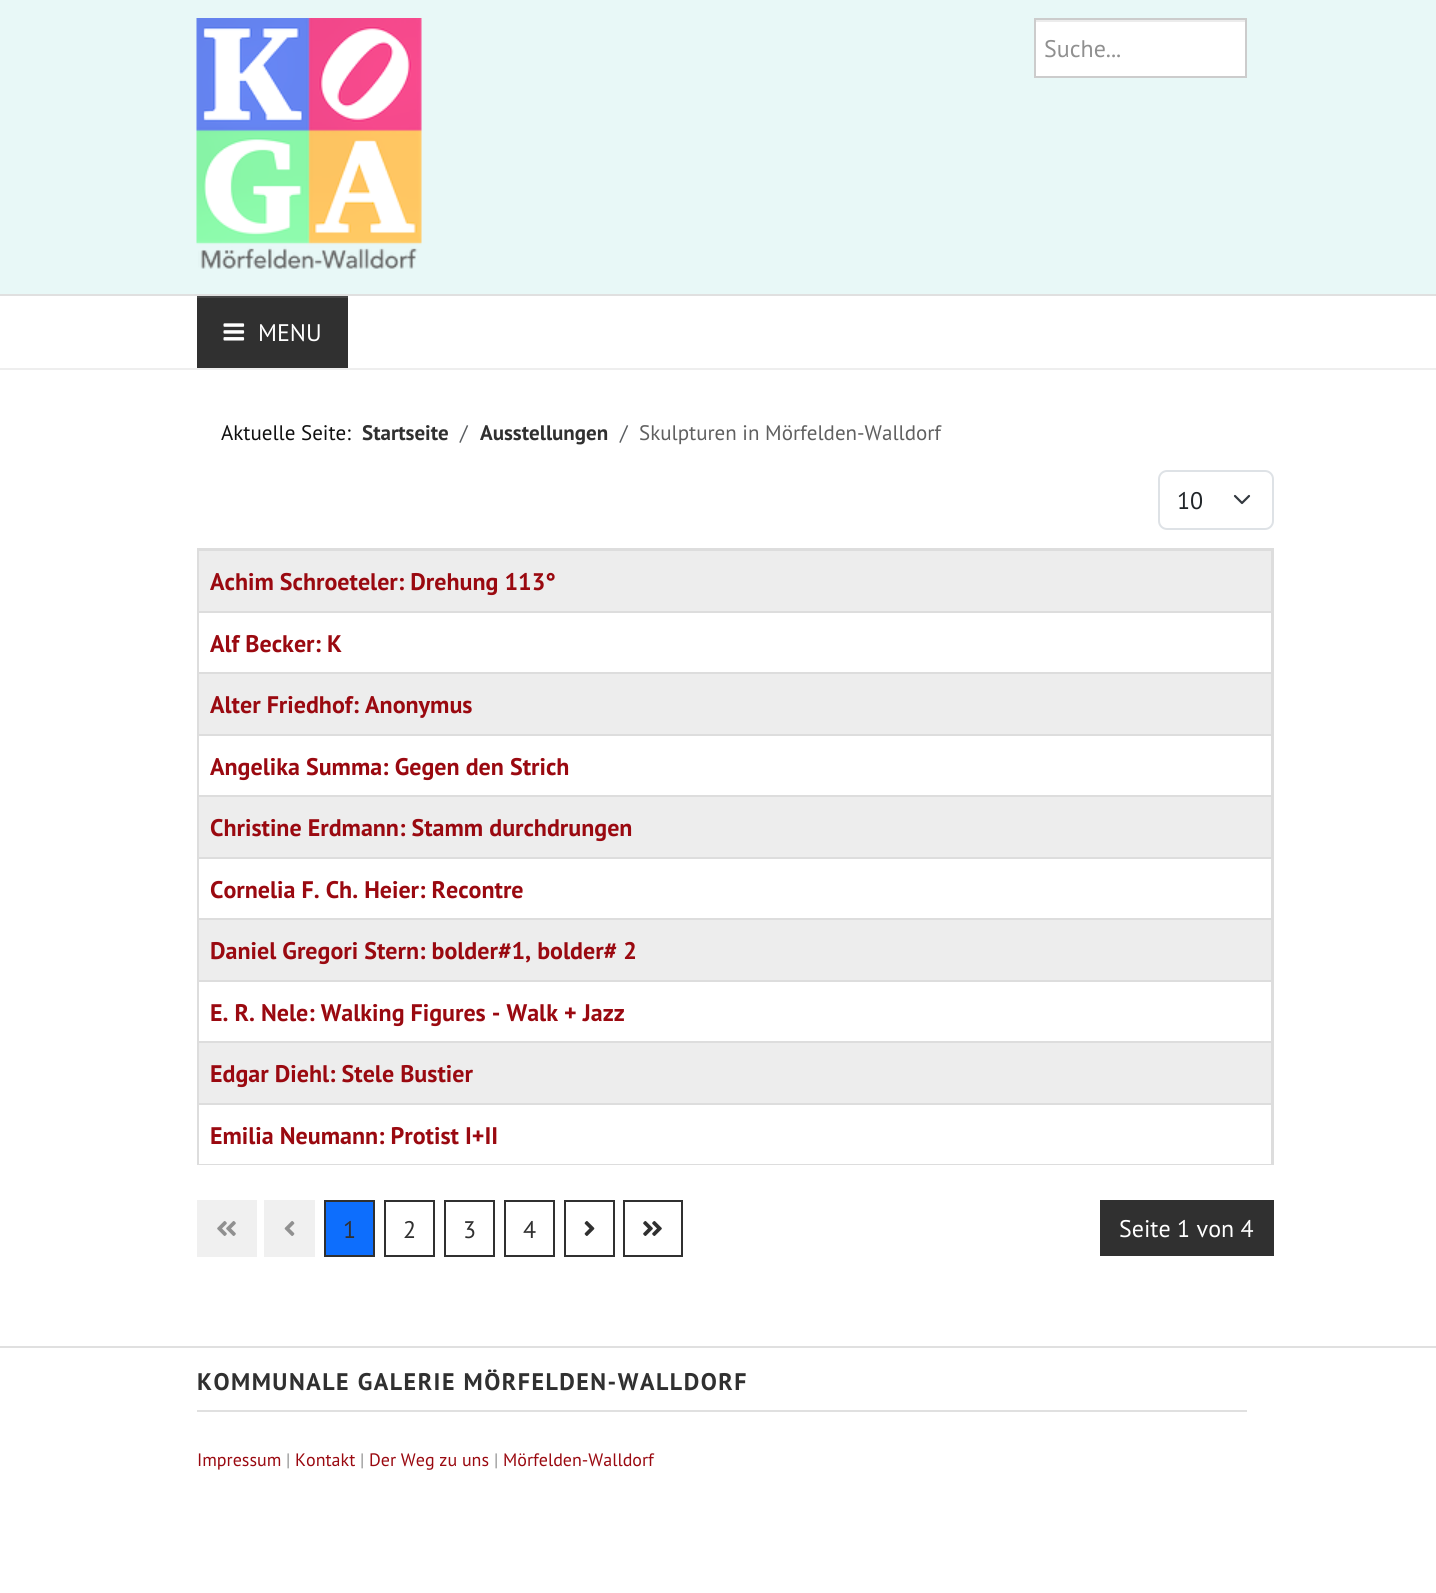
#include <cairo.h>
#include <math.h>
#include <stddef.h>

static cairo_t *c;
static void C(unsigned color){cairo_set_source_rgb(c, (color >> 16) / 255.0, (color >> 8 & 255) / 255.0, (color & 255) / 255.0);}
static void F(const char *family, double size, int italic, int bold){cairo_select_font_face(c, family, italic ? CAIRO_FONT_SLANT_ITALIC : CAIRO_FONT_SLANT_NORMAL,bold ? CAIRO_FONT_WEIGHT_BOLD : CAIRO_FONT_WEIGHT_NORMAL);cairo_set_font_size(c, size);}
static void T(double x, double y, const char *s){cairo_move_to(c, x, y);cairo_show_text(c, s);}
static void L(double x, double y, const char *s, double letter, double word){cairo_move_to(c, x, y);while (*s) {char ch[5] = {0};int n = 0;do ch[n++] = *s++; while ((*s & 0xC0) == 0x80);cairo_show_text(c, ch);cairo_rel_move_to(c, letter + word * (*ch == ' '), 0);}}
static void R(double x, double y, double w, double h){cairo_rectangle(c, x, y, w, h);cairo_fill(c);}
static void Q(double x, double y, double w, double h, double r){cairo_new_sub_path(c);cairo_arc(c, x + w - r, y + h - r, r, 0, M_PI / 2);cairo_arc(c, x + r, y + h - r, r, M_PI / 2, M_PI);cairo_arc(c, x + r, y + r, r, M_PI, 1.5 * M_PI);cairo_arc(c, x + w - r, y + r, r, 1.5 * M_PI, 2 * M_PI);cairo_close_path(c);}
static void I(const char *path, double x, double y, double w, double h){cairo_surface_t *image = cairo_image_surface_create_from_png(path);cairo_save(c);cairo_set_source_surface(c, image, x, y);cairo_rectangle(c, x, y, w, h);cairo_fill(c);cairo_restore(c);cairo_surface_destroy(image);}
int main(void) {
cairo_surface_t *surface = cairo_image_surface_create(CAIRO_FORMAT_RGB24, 1436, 1593);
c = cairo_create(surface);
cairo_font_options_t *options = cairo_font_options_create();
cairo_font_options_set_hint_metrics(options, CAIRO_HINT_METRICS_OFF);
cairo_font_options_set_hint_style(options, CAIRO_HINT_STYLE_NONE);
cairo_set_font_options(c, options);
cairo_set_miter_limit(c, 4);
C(0xffffff);
cairo_paint(c);
C(0xe8f8f7);
R(0,0,1436,294);
C(0xe0e0e0);
R(0,294,1436,2);
I("1.png",196,18,226,251);
C(0xffffff);
R(1036,22,209,54);
C(0xececec);
R(1035,20,210,2);
cairo_rectangle(c,1035,19,211,58);
C(0xcccccc);
cairo_stroke(c);
F("PT Sans",24,0,0);
C(0x909090);
T(1044,57,"Suche...");
C(0xeeeeee);
R(0,368,1436,2);
C(0x303030);
R(197,298,151,70);
C(0x454545);
R(197,296,151,2);
I("2.png",223,323,22,18);
C(0xffffff);
T(258,341,"MENU");
F("PT Sans",21,0,0);
C(0x101010);
T(221,440,"Aktuelle Seite:");
F("PT Sans",21,0,1);
C(0x303030);
T(362,440,"Startseite");
F("PT Sans",21,0,0);
C(0x595c5f);
T(460,440,"/");
F("PT Sans",21,0,1);
C(0x303030);
T(480,440,"Ausstellungen");
F("PT Sans",21,0,0);
C(0x595c5f);
T(620,440,"/");
C(0x606060);
T(639,440,"Skulpturen in Mörfelden-Walldorf");
cairo_new_path(c);
cairo_move_to(c,1235,496);
cairo_line_to(c,1242,503);
cairo_line_to(c,1249,496);
C(0x343a40);
cairo_set_line_width(c,2.2);
cairo_set_line_cap(c,CAIRO_LINE_CAP_ROUND);
cairo_set_line_join(c,CAIRO_LINE_JOIN_ROUND);
cairo_stroke(c);
Q(1159,471,114,58,8);
C(0xdee2e6);
cairo_set_line_width(c,2);
cairo_set_line_cap(c,CAIRO_LINE_CAP_BUTT);
cairo_set_line_join(c,CAIRO_LINE_JOIN_MITER);
cairo_stroke(c);
F("PT Sans",24,0,0);
C(0x212529);
T(1177,509,"10");
C(0xdddddd);
R(197,548,1077,1);
R(1272,548,2,616);
R(197,1163,1077,2);
R(197,549,1075,2);
C(0xededed);
R(199,551,1072,60);
C(0xdddddd);
R(1271,549,1,62);
R(197,549,2,62);
F("PT Sans",24,0,1);
C(0x9a0910);
T(210,590,"Achim Schroeteler: Drehung 113°");
C(0xdddddd);
R(197,611,1075,2);
R(1271,611,1,61);
R(197,611,2,61);
C(0x9a0910);
T(210,652,"Alf Becker: K");
C(0xdddddd);
R(197,672,1075,2);
C(0xededed);
R(199,674,1072,60);
C(0xdddddd);
R(1271,672,1,62);
R(197,672,2,62);
C(0x9a0910);
T(210,713,"Alter Friedhof: Anonymus");
C(0xdddddd);
R(197,734,1075,2);
R(1271,734,1,61);
R(197,734,2,61);
C(0x9a0910);
T(210,775,"Angelika Summa: Gegen den Strich");
C(0xdddddd);
R(197,795,1075,2);
C(0xededed);
R(199,797,1072,60);
C(0xdddddd);
R(1271,795,1,62);
R(197,795,2,62);
C(0x9a0910);
T(210,836,"Christine Erdmann: Stamm durchdrungen");
C(0xdddddd);
R(197,857,1075,2);
R(1271,857,1,61);
R(197,857,2,61);
C(0x9a0910);
T(210,898,"Cornelia F. Ch. Heier: Recontre");
C(0xdddddd);
R(197,918,1075,2);
C(0xededed);
R(199,920,1072,60);
C(0xdddddd);
R(1271,918,1,62);
R(197,918,2,62);
C(0x9a0910);
T(210,959,"Daniel Gregori Stern: bolder#1, bolder# 2");
C(0xdddddd);
R(197,980,1075,2);
R(1271,980,1,61);
R(197,980,2,61);
C(0x9a0910);
T(210,1021,"E. R. Nele: Walking Figures - Walk + Jazz");
C(0xdddddd);
R(197,1041,1075,2);
C(0xededed);
R(199,1043,1072,60);
C(0xdddddd);
R(1271,1041,1,62);
R(197,1041,2,62);
C(0x9a0910);
T(210,1082,"Edgar Diehl: Stele Bustier");
C(0xffffff);
R(199,1163,1072,1);
C(0xdddddd);
R(197,1103,1075,2);
R(1271,1103,1,61);
R(197,1103,2,61);
C(0x9a0910);
T(210,1144,"Emilia Neumann: Protist I+II");
C(0xf0f0f0);
R(197,1200,60,57);
I("3.png",217,1221,19,15);
R(264,1200,51,57);
I("4.png",284,1221,11,15);
C(0x0d6efd);
cairo_rectangle(c,325,1201,49,55);
cairo_fill_preserve(c);
C(0x303030);
cairo_stroke(c);
F("PT Sans",24,0,0);
T(343,1238,"1");
cairo_rectangle(c,385,1201,49,55);
cairo_stroke(c);
T(403,1238,"2");
cairo_rectangle(c,445,1201,49,55);
cairo_stroke(c);
T(463,1238,"3");
cairo_rectangle(c,505,1201,49,55);
cairo_stroke(c);
T(523,1238,"4");
cairo_rectangle(c,565,1201,49,55);
cairo_stroke(c);
I("5.png",584,1221,11,15);
cairo_rectangle(c,624,1201,58,55);
cairo_stroke(c);
I("6.png",643,1221,19,15);
R(1100,1200,174,56);
C(0xffffff);
T(1119,1237,"Seite 1 von 4");
C(0xe0e0e0);
R(0,1346,1436,2);
R(197,1410,1050,2);
F("PT Sans",24,0,1);
C(0x303030);
L(197,1390,"KOMMUNALE GALERIE MÖRFELDEN-WALLDORF",1.5,0);
F("PT Sans",18,0,0);
C(0x9a0910);
T(197,1466,"Impressum");
C(0x909090);
T(286,1466,"|");
C(0x9a0910);
T(295,1466,"Kontakt");
C(0x909090);
T(360,1466,"|");
C(0x9a0910);
T(369,1466,"Der Weg zu uns");
C(0x909090);
T(494,1466,"|");
C(0x9a0910);
T(503,1466,"Mörfelden-Walldorf");
cairo_surface_write_to_png(surface, "o.png");
cairo_font_options_destroy(options);
cairo_destroy(c);
cairo_surface_destroy(surface);
return 0;
}
